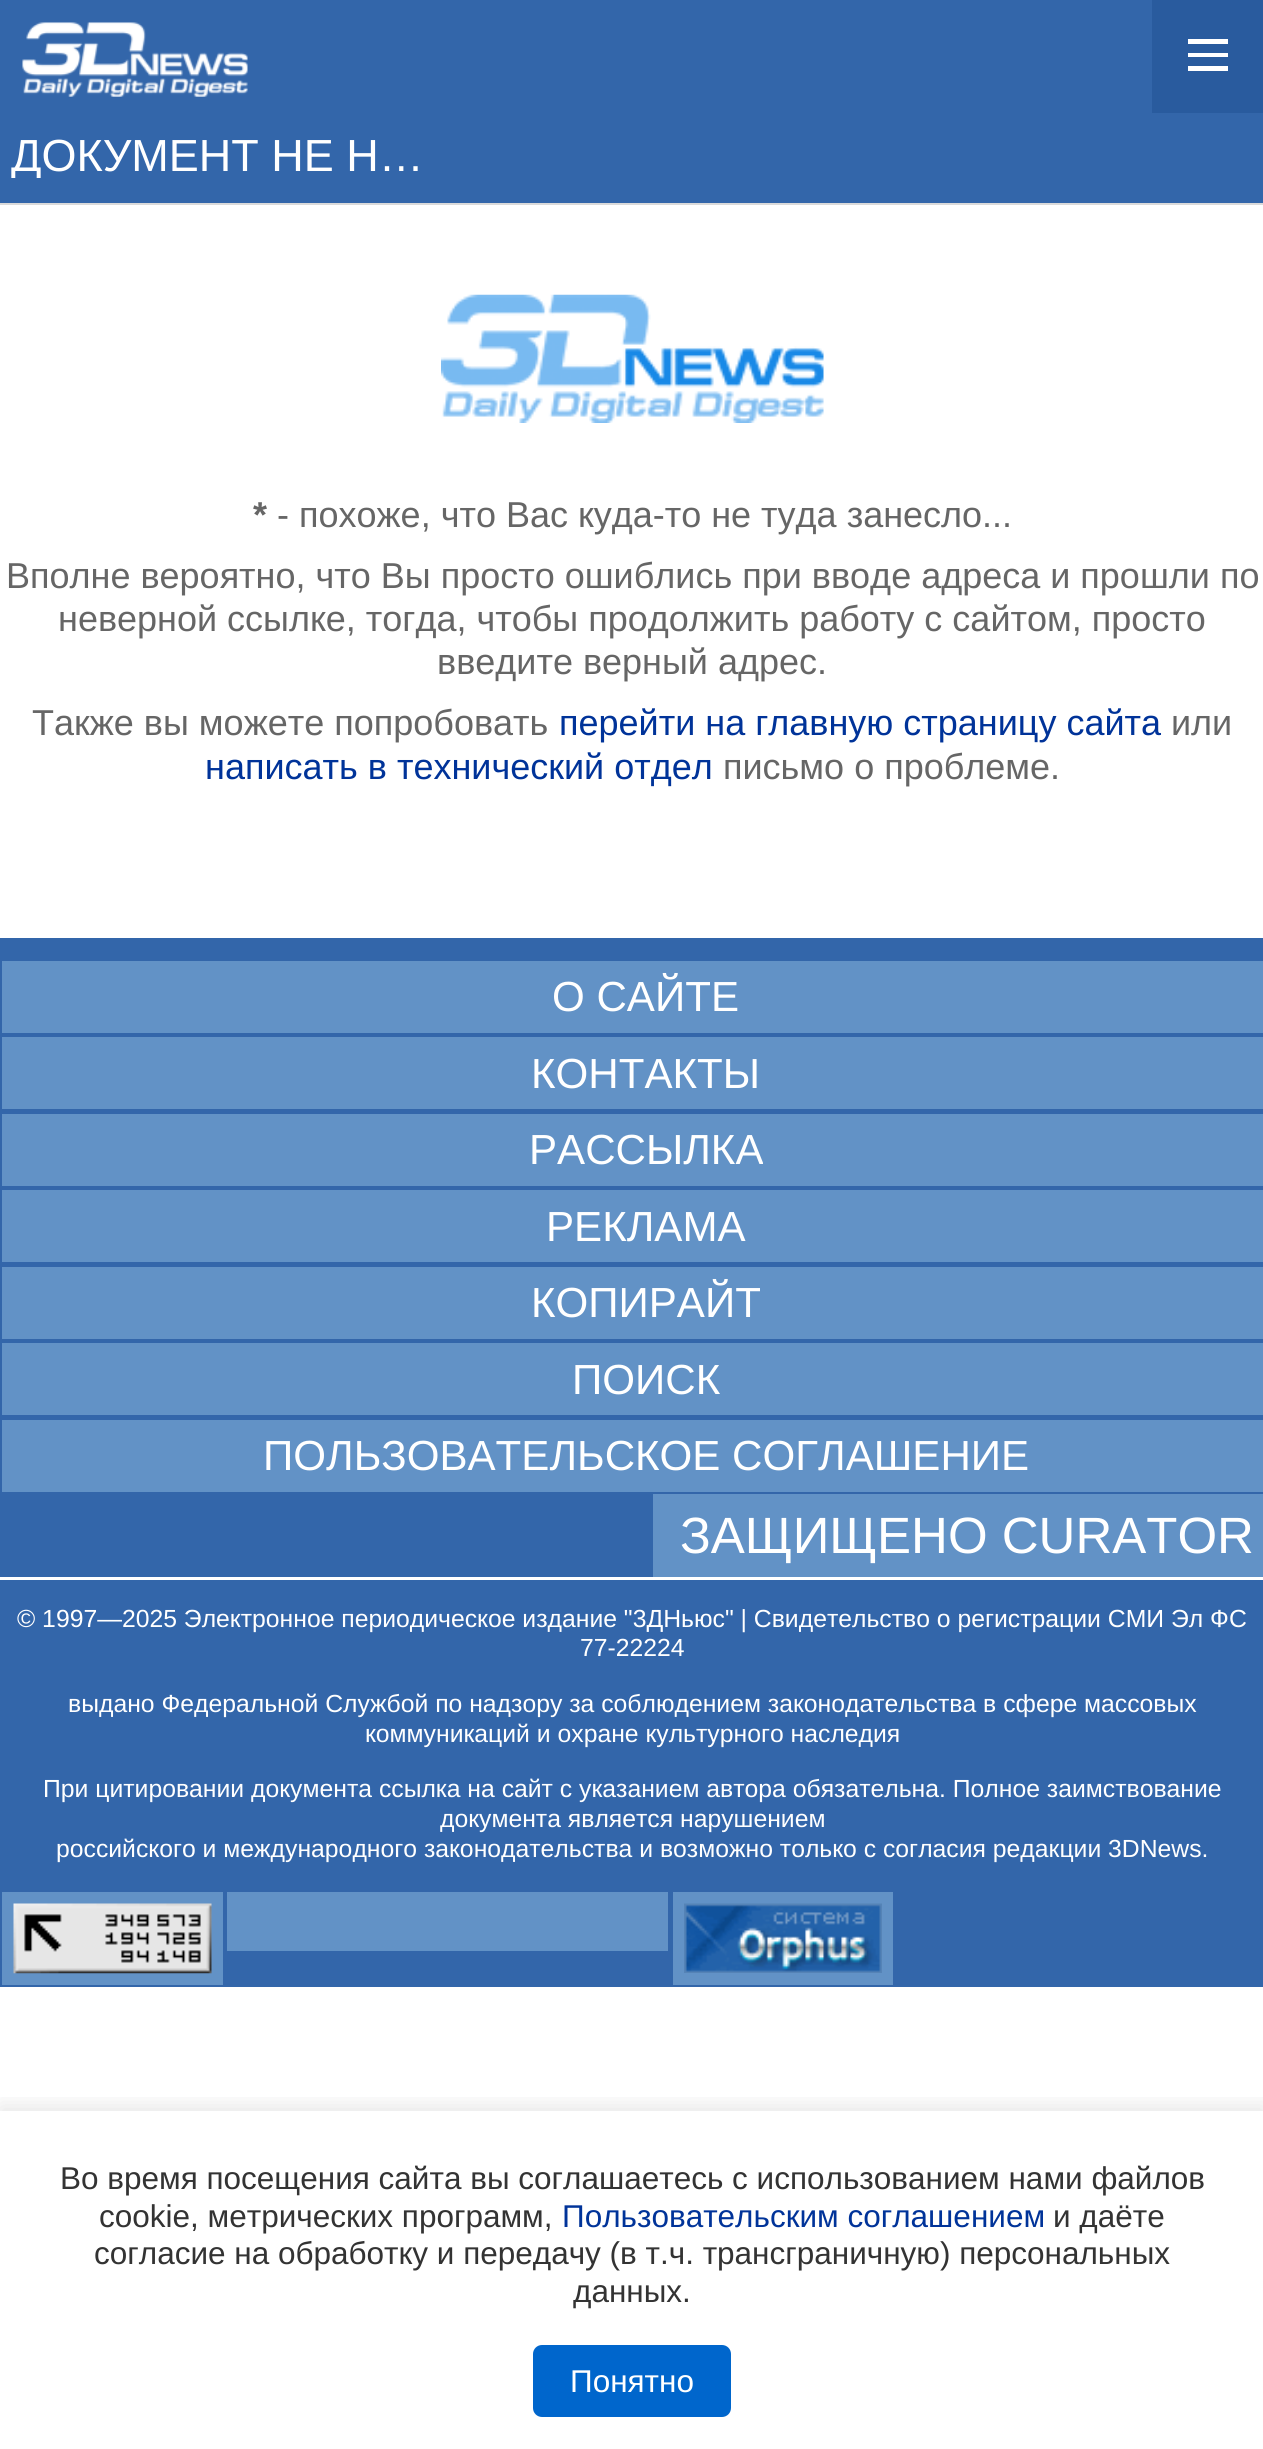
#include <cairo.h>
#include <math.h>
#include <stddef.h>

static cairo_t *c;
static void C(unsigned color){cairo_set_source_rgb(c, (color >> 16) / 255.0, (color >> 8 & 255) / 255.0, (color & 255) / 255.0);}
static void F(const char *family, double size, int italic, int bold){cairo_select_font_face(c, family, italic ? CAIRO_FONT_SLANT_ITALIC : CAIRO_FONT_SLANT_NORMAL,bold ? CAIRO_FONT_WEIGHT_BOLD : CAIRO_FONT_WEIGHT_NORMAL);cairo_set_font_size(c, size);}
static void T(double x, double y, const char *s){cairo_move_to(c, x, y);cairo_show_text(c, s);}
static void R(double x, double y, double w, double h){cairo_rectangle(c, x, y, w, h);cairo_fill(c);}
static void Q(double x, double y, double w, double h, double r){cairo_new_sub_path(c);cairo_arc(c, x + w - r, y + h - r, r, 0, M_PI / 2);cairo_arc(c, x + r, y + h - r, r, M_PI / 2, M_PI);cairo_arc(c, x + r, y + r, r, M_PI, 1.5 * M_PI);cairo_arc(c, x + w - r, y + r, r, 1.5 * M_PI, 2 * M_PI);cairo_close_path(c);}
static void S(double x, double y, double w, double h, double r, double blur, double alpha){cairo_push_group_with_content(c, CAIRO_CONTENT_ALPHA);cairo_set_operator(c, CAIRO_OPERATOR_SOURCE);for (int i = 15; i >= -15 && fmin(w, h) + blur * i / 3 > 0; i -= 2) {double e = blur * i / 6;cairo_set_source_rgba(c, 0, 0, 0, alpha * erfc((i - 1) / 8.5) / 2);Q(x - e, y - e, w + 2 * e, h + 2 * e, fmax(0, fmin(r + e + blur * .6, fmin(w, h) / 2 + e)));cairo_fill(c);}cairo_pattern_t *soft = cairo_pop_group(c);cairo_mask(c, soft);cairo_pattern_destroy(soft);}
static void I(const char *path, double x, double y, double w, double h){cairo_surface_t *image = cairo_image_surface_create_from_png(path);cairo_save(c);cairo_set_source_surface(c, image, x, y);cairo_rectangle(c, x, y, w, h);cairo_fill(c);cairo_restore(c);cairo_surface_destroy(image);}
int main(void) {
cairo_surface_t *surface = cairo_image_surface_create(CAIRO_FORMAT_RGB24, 1263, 2449);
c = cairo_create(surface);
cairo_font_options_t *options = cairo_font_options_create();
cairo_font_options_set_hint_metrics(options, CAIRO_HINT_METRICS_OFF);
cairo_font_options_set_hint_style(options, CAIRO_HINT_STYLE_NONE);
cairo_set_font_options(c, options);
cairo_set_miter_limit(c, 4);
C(0xffffff);
cairo_paint(c);
C(0x3366aa);
R(0,0,1152,113);
I("1.png",22,22,226,75);
C(0x295b9e);
R(1152,0,111,113);
C(0xffffff);
R(1188,53,40,4);
R(1188,39,40,5);
R(1188,66,40,5);
C(0x3366aa);
R(0,113,1263,90);
C(0xdadada);
R(0,203,1263,2);
cairo_save(c);
cairo_rectangle(c,11,133,428,45);
cairo_clip(c);
F("Liberation Sans",45,0,0);
C(0xffffff);
T(11,171,"ДОКУМЕНТ НЕ Н…");
cairo_restore(c);
I("2.png",441,294,383,129);
F("Liberation Sans",36,0,1);
C(0x666666);
T(253,527,"*");
F("Liberation Sans",36,0,0);
T(277,527,"- похоже, что Вас куда-то не туда занесло...");
T(6,588,"Вполне вероятно, что Вы просто ошиблись при вводе адреса и прошли по");
T(58,631,"неверной ссылке, тогда, чтобы продолжить работу с сайтом, просто");
T(437,674,"введите верный адрес.");
T(32,735,"Также вы можете попробовать");
C(0x003399);
T(559,735,"перейти на главную страницу сайта");
C(0x666666);
T(1171,735,"или");
C(0x003399);
T(205,779,"написать в технический отдел");
C(0x666666);
T(723,779,"письмо о проблеме.");
C(0x3366aa);
R(0,938,1263,639);
C(0x6292c6);
R(2,961,1261,72);
F("Liberation Sans",42.1,0,0);
C(0xffffff);
T(552,1011,"О САЙТЕ");
C(0x6292c6);
R(2,1037,1261,72);
C(0xffffff);
T(531,1088,"КОНТАКТЫ");
C(0x6292c6);
R(2,1114,1261,72);
C(0xffffff);
T(529,1164,"РАССЫЛКА");
C(0x6292c6);
R(2,1190,1261,72);
C(0xffffff);
T(546,1241,"РЕКЛАМА");
C(0x6292c6);
R(2,1267,1261,72);
C(0xffffff);
T(531,1317,"КОПИРАЙТ");
C(0x6292c6);
R(2,1343,1261,72);
C(0xffffff);
T(572,1394,"ПОИСК");
C(0x6292c6);
R(2,1420,1261,72);
C(0xffffff);
T(263,1470,"ПОЛЬЗОВАТЕЛЬСКОЕ СОГЛАШЕНИЕ");
C(0x6292c6);
R(653,1494,610,83);
F("Liberation Sans",51,0,0);
C(0xffffff);
T(680,1553,"ЗАЩИЩЕНО CURATOR");
C(0x3366aa);
R(0,1580,1263,407);
F("Liberation Sans",24.75,0,0);
C(0xffffff);
T(17,1627,"© 1997—2025 Электронное периодическое издание \"3ДНьюс\" | Свидетельство о регистрации СМИ Эл ФС");
T(580,1656,"77-22224");
T(68,1712,"выдано Федеральной Службой по надзору за соблюдением законодательства в сфере массовых");
T(365,1742,"коммуникаций и охране культурного наследия");
T(43,1797,"При цитировании документа ссылка на сайт с указанием автора обязательна. Полное заимствование");
T(440,1827,"документа является нарушением");
T(56,1857,"российского и международного законодательства и возможно только с согласия редакции 3DNews.");
C(0x6292c6);
R(2,1892,221,93);
I("3.png",13,1903,199,71);
R(227,1892,441,59);
R(673,1892,220,93);
I("4.png",684,1903,198,70);
cairo_save(c);
cairo_rectangle(c,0,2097,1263,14);
cairo_clip(c);
C(0x000000);
S(0,2106,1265,340,0,11,.1);
cairo_restore(c);
F("Liberation Sans",31.5,0,0);
C(0x333333);
T(60,2189,"Во время посещения сайта вы соглашаетесь с использованием нами файлов");
T(99,2227,"cookie, метрических программ,");
C(0x003399);
T(562,2227,"Пользовательским соглашением");
C(0x333333);
T(1053,2227,"и даёте");
T(94,2264,"согласие на обработку и передачу (в т.ч. трансграничную) персональных");
T(573,2302,"данных.");
C(0x0066cc);
Q(533,2345,198,72,9);
cairo_fill(c);
C(0xffffff);
T(570,2392,"Понятно");
cairo_surface_write_to_png(surface, "o.png");
cairo_font_options_destroy(options);
cairo_destroy(c);
cairo_surface_destroy(surface);
return 0;
}
